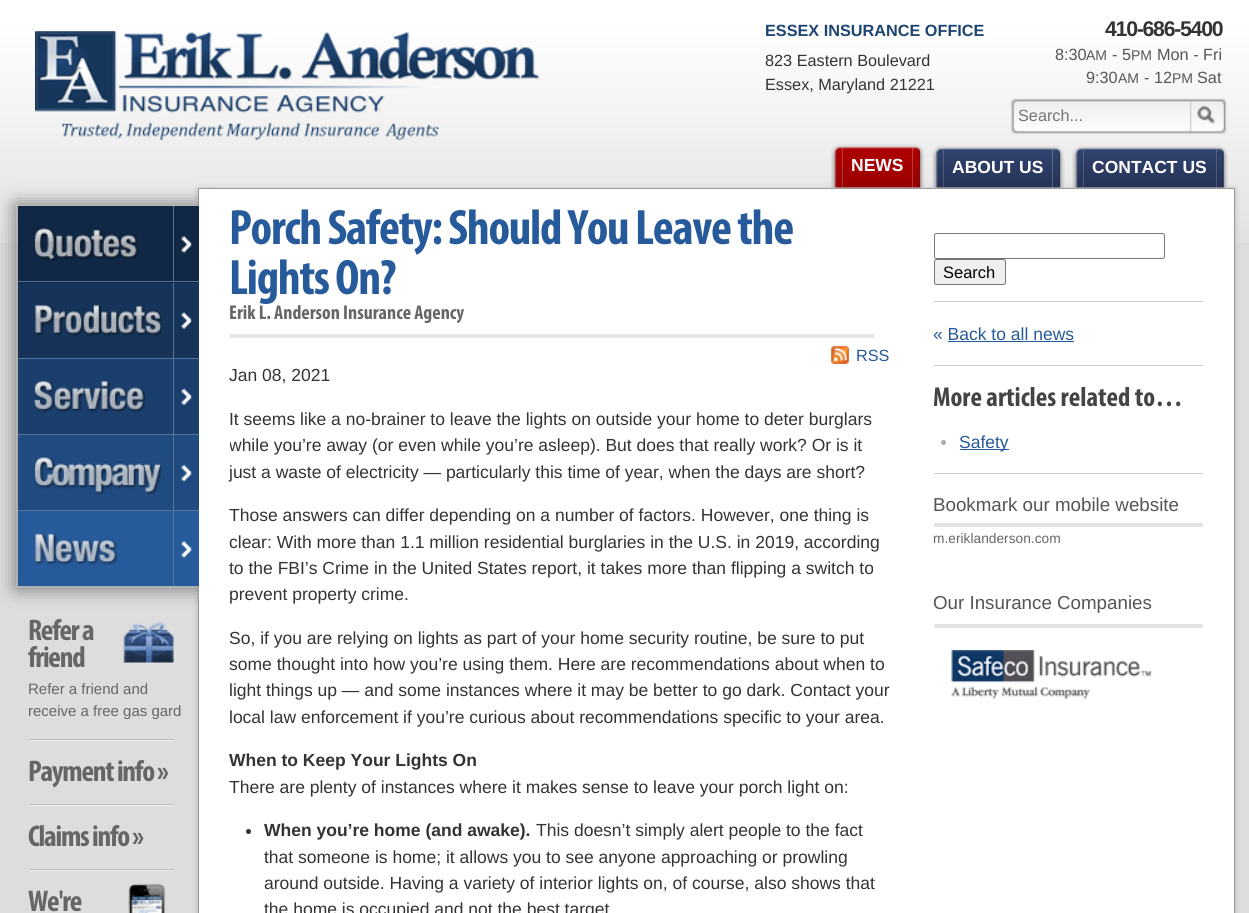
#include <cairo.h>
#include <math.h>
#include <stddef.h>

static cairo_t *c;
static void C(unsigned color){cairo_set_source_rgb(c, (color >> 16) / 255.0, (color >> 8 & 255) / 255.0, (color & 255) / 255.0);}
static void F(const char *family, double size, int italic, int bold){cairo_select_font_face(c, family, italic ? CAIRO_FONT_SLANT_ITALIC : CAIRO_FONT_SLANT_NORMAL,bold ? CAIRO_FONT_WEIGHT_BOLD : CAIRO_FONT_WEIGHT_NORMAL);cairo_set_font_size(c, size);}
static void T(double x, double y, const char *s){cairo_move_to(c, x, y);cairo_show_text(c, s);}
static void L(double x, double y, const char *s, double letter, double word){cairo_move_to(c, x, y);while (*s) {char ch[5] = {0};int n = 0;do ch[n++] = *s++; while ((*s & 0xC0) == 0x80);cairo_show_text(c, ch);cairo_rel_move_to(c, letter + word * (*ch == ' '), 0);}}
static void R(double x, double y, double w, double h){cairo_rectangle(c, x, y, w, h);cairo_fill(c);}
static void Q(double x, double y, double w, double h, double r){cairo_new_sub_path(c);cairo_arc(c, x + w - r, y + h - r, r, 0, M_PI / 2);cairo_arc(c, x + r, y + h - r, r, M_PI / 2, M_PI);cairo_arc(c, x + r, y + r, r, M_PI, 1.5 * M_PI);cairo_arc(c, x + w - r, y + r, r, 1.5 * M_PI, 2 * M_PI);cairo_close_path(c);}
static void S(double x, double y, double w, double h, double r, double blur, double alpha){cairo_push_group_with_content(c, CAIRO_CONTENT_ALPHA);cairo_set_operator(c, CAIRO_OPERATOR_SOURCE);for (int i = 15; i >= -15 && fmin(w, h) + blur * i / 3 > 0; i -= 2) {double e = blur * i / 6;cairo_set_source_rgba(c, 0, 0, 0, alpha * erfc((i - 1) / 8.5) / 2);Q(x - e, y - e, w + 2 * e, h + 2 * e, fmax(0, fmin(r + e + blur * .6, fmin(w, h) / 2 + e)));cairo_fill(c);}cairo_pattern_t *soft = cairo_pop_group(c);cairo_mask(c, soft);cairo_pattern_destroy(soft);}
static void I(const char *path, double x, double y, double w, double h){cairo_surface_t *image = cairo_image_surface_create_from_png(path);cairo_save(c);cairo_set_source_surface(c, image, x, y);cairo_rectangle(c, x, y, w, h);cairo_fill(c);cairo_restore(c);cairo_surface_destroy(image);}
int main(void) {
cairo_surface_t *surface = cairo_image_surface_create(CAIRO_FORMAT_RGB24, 1249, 913);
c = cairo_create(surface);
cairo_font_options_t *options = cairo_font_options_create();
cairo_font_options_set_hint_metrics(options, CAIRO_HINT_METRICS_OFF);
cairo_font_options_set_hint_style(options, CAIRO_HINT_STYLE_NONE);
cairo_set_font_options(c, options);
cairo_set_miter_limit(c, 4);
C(0xdddddd);
cairo_paint(c);
I("1.png",0,0,1249,243);
I("2.png",35,31,505,109);
F("Liberation Sans",16.25,0,1);
C(0x1e4472);
T(765,36,"ESSEX INSURANCE OFFICE");
F("Liberation Sans",16.25,0,0);
C(0x333333);
T(765,66,"823 Eastern Boulevard");
T(765,90,"Essex, Maryland 21221");
F("Liberation Sans",21.25,0,1);
L(1105,36,"410-686-5400",-1.25,0);
F("Liberation Sans",16.25,0,0);
C(0x555555);
T(1055,60,"8:30");
F("Liberation Sans",14,0,0);
T(1086,60,"AM");
F("Liberation Sans",16.25,0,0);
T(1112,60,"- 5");
F("Liberation Sans",14,0,0);
T(1131,60,"PM");
F("Liberation Sans",16.25,0,0);
T(1157,60,"Mon - Fri");
T(1086,83,"9:30");
F("Liberation Sans",14,0,0);
T(1118,83,"AM");
F("Liberation Sans",16.25,0,0);
T(1144,83,"- 12");
F("Liberation Sans",14,0,0);
T(1172,83,"PM");
F("Liberation Sans",16.25,0,0);
T(1197,83,"Sat");
I("3.png",1011,98,216,36);
C(0x757575);
T(1018,121,"Search...");
I("4.png",842,144,71,44);
I("5.png",830,144,13,44);
F("Liberation Sans",17.5,0,1);
C(0xffffff);
T(851,171,"NEWS");
I("6.png",912,144,13,44);
I("7.png",943,146,110,42);
I("8.png",932,145,12,43);
T(952,173,"ABOUT US");
I("9.png",1052,145,13,43);
I("10.png",1083,146,134,42);
I("8.png",1072,145,12,43);
T(1092,173,"CONTACT US");
I("11.png",1216,145,12,43);
C(0x000000);
S(16,205,182,383,0,9.5,.5);
cairo_set_source_rgba(c,1,1,1,0.15);
R(16,205,182,383);
C(0x000000);
S(198,189,1037,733,0,3,.2);
C(0xffffff);
cairo_rectangle(c,198.5,188.5,1036,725);
cairo_fill_preserve(c);
C(0x999999);
cairo_set_line_width(c,1);
cairo_stroke(c);
C(0x102845);
R(18,206,181,77);
C(0x567498);
R(18,281,181,1);
I("12.png",34,228,105,34);
I("13.png",181,236,11,17);
R(173,206,1,75);
C(0x163459);
R(18,283,181,75);
C(0x567498);
R(18,358,181,1);
I("14.png",34,304,128,32);
I("15.png",181,312,11,17);
R(173,283,1,75);
C(0x1b3f6d);
R(18,359,181,75);
C(0x567498);
R(18,434,181,1);
I("16.png",33,380,113,33);
I("17.png",181,388,11,17);
R(173,359,1,75);
C(0x204b81);
R(18,435,181,75);
C(0x567498);
R(18,510,181,1);
I("18.png",34,456,128,39);
I("19.png",181,465,11,17);
R(173,435,1,75);
C(0x275a9a);
R(18,511,181,75);
I("20.png",34,532,85,33);
I("21.png",181,541,11,17);
C(0x567498);
R(173,511,1,75);
C(0xbbbbbb);
R(29,739,145,1);
F("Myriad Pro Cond",30,0,1);
C(0x666666);
L(28,640,"Refer a",-1.25,0);
L(28,667,"friend",-1.25,0);
I("22.png",123,622,51,41);
F("Liberation Sans",15,0,0);
T(28,694,"Refer a friend and");
T(28,716,"receive a free gas gard");
C(0xeeeeee);
R(29,740,145,1);
C(0xbbbbbb);
R(29,804,145,1);
F("Myriad Pro Cond",30,0,1);
C(0x666666);
L(28,781,"Payment info »",-1.25,0);
C(0xeeeeee);
R(29,805,145,1);
C(0xbbbbbb);
R(29,869,145,1);
C(0x666666);
L(28,846,"Claims info »",-1.25,0);
C(0xeeeeee);
R(29,870,145,1);
C(0x666666);
L(28,911,"We're",-1.25,0);
I("23.png",128,883,38,30);
C(0xe6e6e6);
R(230,334,644,4);
F("Myriad Pro Cond",50,0,1);
C(0x275a9a);
L(229,244,"Porch Safety: Should You Leave the",-1.25,0);
L(229,294,"Lights On?",-1.25,0);
F("Myriad Pro Cond",20,0,1);
C(0x666666);
T(229,319,"Erik L. Anderson Insurance Agency");
I("24.png",831,346,18,18);
F("Liberation Sans",16.25,0,0);
C(0x275a9a);
T(856,361,"RSS");
F("Liberation Sans",17.5,0,0);
C(0x333333);
T(229,381,"Jan 08, 2021");
T(229,425,"It seems like a no-brainer to leave the lights on outside your home to deter burglars");
cairo_save(c);
cairo_rectangle(c,230,189,973,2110);
cairo_clip(c);
T(229,451,"while you’re away (or even while you’re asleep). But does that really work? Or is it");
cairo_restore(c);
T(229,478,"just a waste of electricity — particularly this time of year, when the days are short?");
T(229,521,"Those answers can differ depending on a number of factors. However, one thing is");
T(229,548,"clear: With more than 1.1 million residential burglaries in the U.S. in 2019, according");
T(229,574,"to the FBI’s Crime in the United States report, it takes more than flipping a switch to");
T(229,600,"prevent property crime.");
T(229,644,"So, if you are relying on lights as part of your home security routine, be sure to put");
T(229,670,"some thought into how you’re using them. Here are recommendations about when to");
T(229,696,"light things up — and some instances where it may be better to go dark. Contact your");
T(229,723,"local law enforcement if you’re curious about recommendations specific to your area.");
F("Liberation Sans",17.5,0,1);
T(229,766,"When to Keep Your Lights On");
F("Liberation Sans",17.5,0,0);
T(229,793,"There are plenty of instances where it makes sense to leave your porch light on:");
cairo_new_path(c);
cairo_arc(c,248.5,831.5,2.5,0,2 * M_PI);
cairo_fill(c);
F("Liberation Sans",17.5,0,1);
T(264,836,"When you’re home (and awake).");
F("Liberation Sans",17.5,0,0);
T(536,836,"This doesn’t simply alert people to the fact");
T(264,863,"that someone is home; it allows you to see anyone approaching or prowling");
T(264,889,"around outside. Having a variety of interior lights on, of course, also shows that");
T(264,915,"the home is occupied and not the best target");
Q(934.5,233.5,230,25,2);
C(0x767676);
cairo_stroke(c);
C(0xefefef);
Q(934.5,259.5,71,25,2);
cairo_fill_preserve(c);
C(0x767676);
cairo_stroke(c);
F("Liberation Sans",16.5,0,0);
C(0x000000);
T(943,278,"Search");
C(0xcccccc);
R(934,301,269,1);
F("Liberation Sans",17.5,0,0);
C(0x275a9a);
T(933,340,"« Back to all news");
R(948,341,126,1);
C(0xcccccc);
R(934,365,269,1);
F("Myriad Pro Cond",27.5,0,1);
C(0x444444);
T(933,406,"More articles related to…");
C(0xaaaaaa);
cairo_new_path(c);
cairo_arc(c,943.5,442.5,2.5,0,2 * M_PI);
cairo_fill(c);
C(0x275a9a);
R(960,449,49,1);
F("Liberation Sans",17.5,0,0);
T(959,448,"Safety");
C(0xcccccc);
R(934,473,269,1);
C(0xe3e3e3);
R(934,523,269,4);
F("Liberation Sans",18.75,0,0);
C(0x555555);
T(933,511,"Bookmark our mobile website");
F("Liberation Sans",13.75,0,0);
C(0x666666);
T(933,543,"m.eriklanderson.com");
C(0xe3e3e3);
R(934,624,269,4);
F("Liberation Sans",18.75,0,0);
C(0x555555);
T(933,609,"Our Insurance Companies");
I("25.png",951,650,201,49);
cairo_surface_write_to_png(surface, "o.png");
cairo_font_options_destroy(options);
cairo_destroy(c);
cairo_surface_destroy(surface);
return 0;
}
